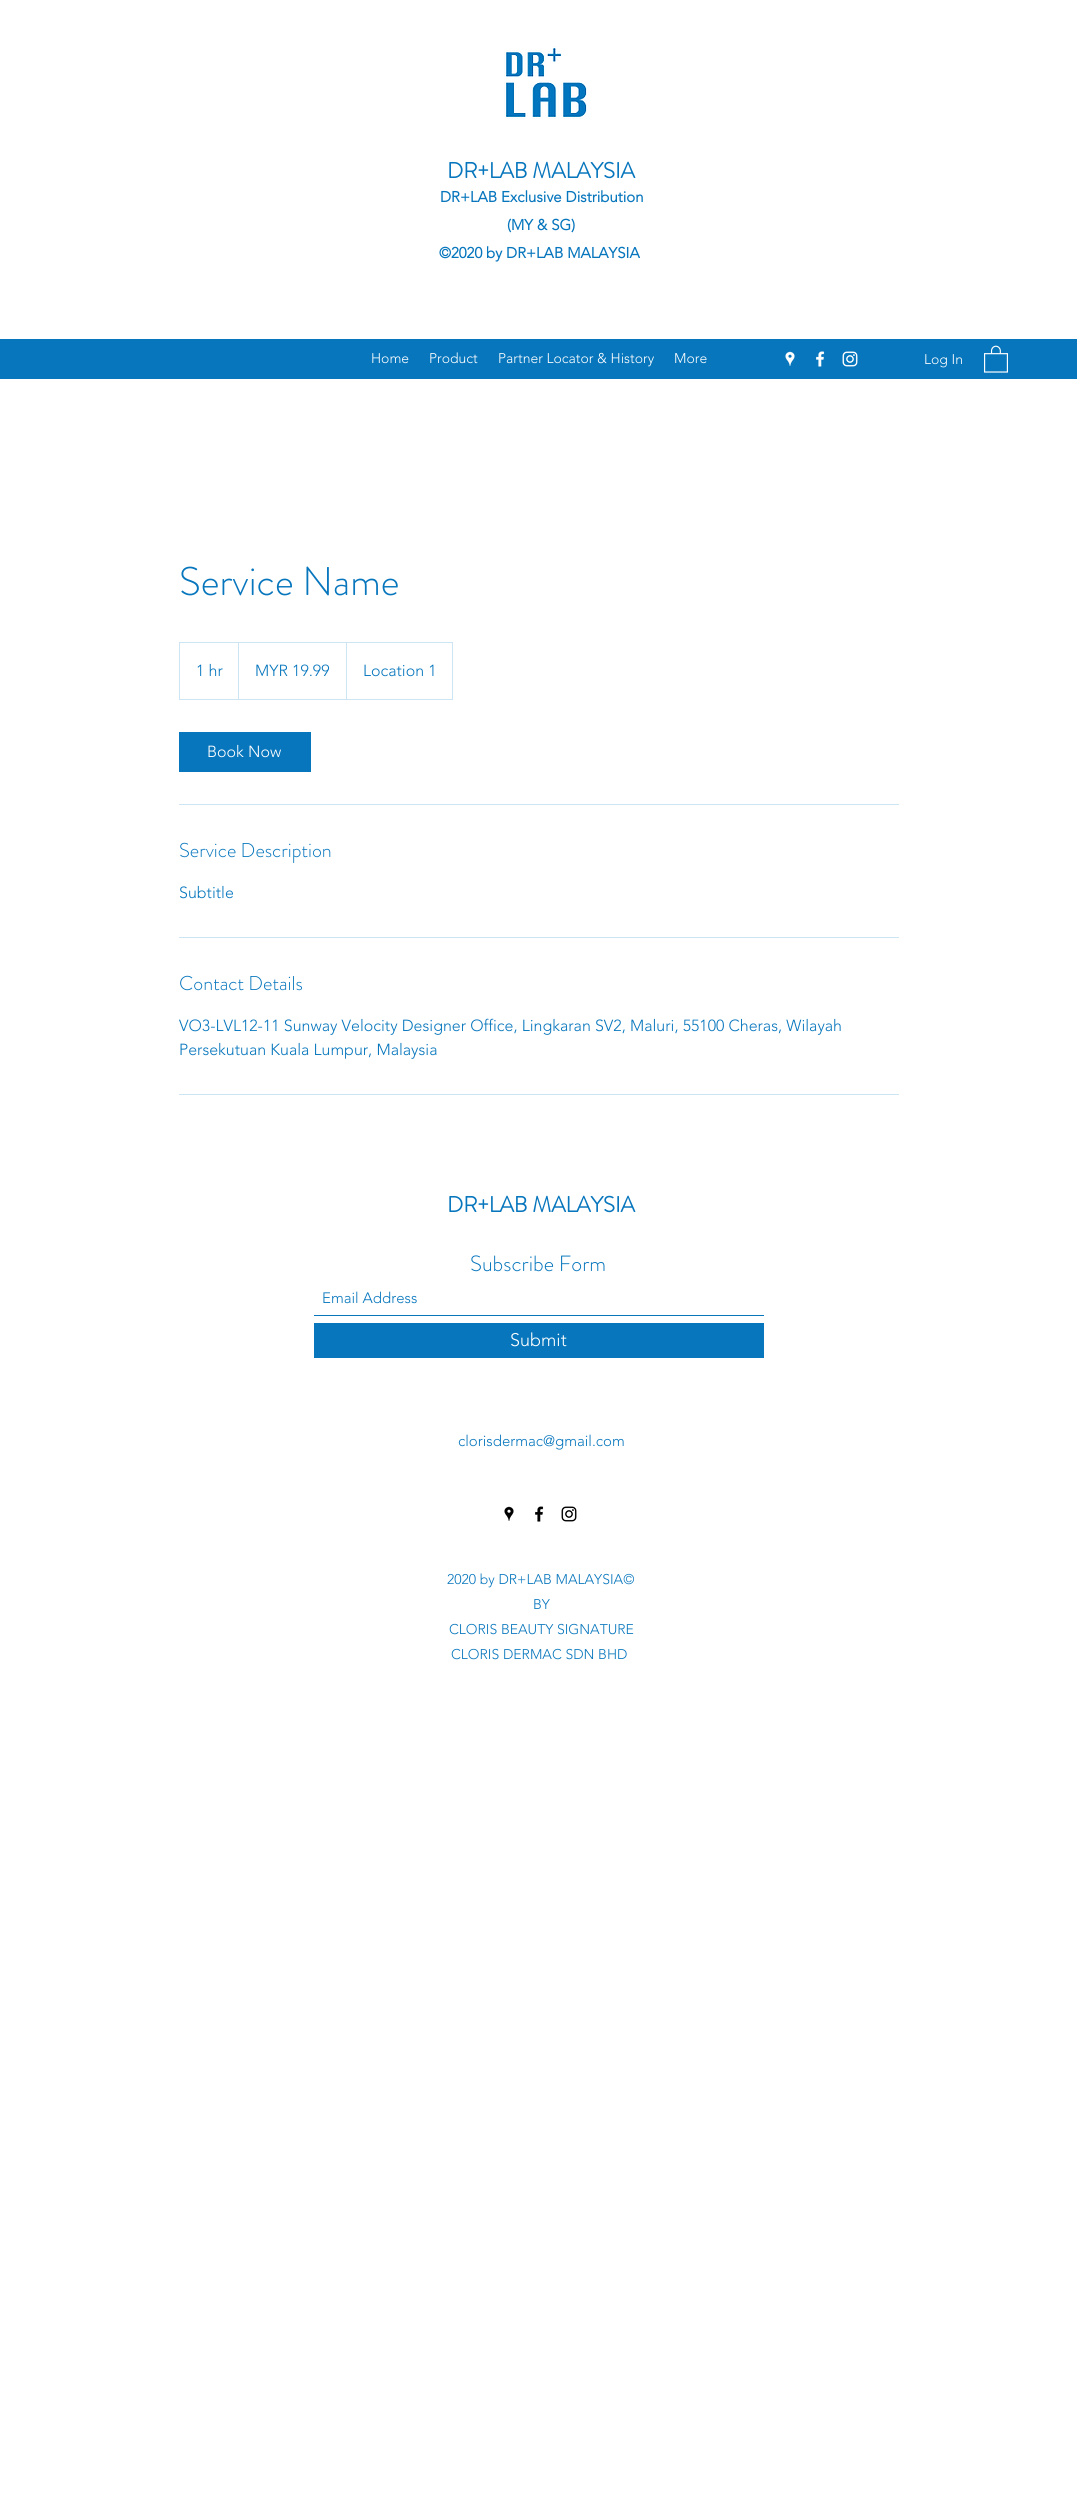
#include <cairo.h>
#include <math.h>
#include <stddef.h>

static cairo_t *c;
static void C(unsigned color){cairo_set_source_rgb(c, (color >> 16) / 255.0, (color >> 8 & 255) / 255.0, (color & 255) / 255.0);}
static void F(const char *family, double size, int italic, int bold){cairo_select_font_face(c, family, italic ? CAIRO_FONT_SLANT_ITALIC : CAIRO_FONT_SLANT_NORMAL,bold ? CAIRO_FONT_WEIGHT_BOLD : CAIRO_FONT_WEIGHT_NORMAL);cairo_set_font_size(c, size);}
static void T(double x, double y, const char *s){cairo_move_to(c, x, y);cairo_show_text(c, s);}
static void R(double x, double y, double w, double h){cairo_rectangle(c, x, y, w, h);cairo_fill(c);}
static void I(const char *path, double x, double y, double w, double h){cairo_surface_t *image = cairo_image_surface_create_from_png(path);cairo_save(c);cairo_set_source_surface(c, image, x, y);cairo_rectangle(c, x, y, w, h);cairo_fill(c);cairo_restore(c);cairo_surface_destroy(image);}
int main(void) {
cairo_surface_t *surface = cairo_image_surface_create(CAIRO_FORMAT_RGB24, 1077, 2494);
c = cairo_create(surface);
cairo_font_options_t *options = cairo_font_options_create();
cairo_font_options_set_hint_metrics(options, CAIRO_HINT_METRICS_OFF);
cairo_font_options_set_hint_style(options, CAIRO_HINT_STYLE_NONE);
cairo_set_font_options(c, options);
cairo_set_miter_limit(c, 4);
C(0xffffff);
cairo_paint(c);
I("1.png",504,46,83,73);
F("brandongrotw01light",22,0,1);
C(0x0776bd);
T(447,178,"DR+LAB MALAYSIA");
F("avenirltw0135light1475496",15,0,1);
T(440,202,"DR+LAB Exclusive Distribution");
T(507,230,"(MY & SG)");
T(439,258,"©2020 by DR+LAB MALAYSIA");
R(0,339,1077,40);
F("avenirltw0135light1475496 Light",14,0,0);
C(0xffffff);
T(371,363,"Home");
T(429,363,"Product");
T(498,363,"Partner Locator & History");
T(674,363,"More");
I("2.png",785,351,10,15);
I("3.png",816,351,9,16);
I("4.png",842,351,16,16);
T(924,364,"Log In");
I("5.png",984,345,24,28);
F("brandongrotw01light Light",40,0,0);
C(0x0776bd);
T(179,595,"Service Name");
cairo_rectangle(c,179.5,642.5,273,57);
C(0xcde4f2);
cairo_set_line_width(c,1);
cairo_stroke(c);
F("avenirltw0135light1475496 Light",16,0,0);
C(0x0776bd);
T(196,676,"1 hr");
C(0xcde4f2);
cairo_new_path(c);
cairo_move_to(c,238,699);
cairo_line_to(c,238,642);
cairo_line_to(c,239,643);
cairo_line_to(c,239,699);
cairo_close_path(c);
cairo_fill(c);
C(0x0776bd);
T(255,676,"MYR 19.99");
C(0xcde4f2);
cairo_new_path(c);
cairo_move_to(c,346,699);
cairo_line_to(c,346,642);
cairo_line_to(c,347,643);
cairo_line_to(c,347,699);
cairo_close_path(c);
cairo_fill(c);
C(0x0776bd);
T(363,676,"Location 1");
R(179,732,132,40);
C(0xffffff);
T(207,757,"Book Now");
C(0xcde4f2);
R(179,804,720,1);
F("brandongrotw01light Light",20,0,0);
C(0x0776bd);
T(179,857,"Service Description");
F("avenirltw0135light1475496 Light",16,0,0);
T(179,898,"Subtitle");
C(0xcde4f2);
R(179,937,720,1);
F("brandongrotw01light Light",20,0,0);
C(0x0776bd);
T(179,990,"Contact Details");
F("avenirltw0135light1475496 Light",16,0,0);
T(179,1031,"VO3-LVL12-11 Sunway Velocity Designer Office, Lingkaran SV2, Maluri, 55100 Cheras, Wilayah");
T(179,1055,"Persekutuan Kuala Lumpur, Malaysia");
C(0xcde4f2);
R(179,1094,720,1);
F("brandongrotw01light",22,0,1);
C(0x0776bd);
T(447,1212,"DR+LAB MALAYSIA");
F("brandongrotw01light Light",22,0,0);
T(470,1271,"Subscribe Form");
R(314,1315,450,1);
F("avenirltw0135light1475496 Light",15,0,0);
T(322,1303,"Email Address");
R(314,1323,450,35);
F("avenirltw0135light1475496 Light",18,0,0);
C(0xffffff);
T(510,1346,"Submit");
F("avenirltw0135light1475496 Light",15,0,0);
C(0x0776bd);
T(458,1446,"clorisdermac@gmail.com");
I("6.png",504,1506,10,15);
I("7.png",535,1506,9,16);
I("8.png",561,1506,16,16);
F("avenirltw0135light1475496 Light",14,0,0);
T(447,1584,"2020 by DR+LAB MALAYSIA©");
T(533,1609,"BY");
T(449,1634,"CLORIS BEAUTY SIGNATURE");
T(451,1659,"CLORIS DERMAC SDN BHD");
cairo_surface_write_to_png(surface, "o.png");
cairo_font_options_destroy(options);
cairo_destroy(c);
cairo_surface_destroy(surface);
return 0;
}
